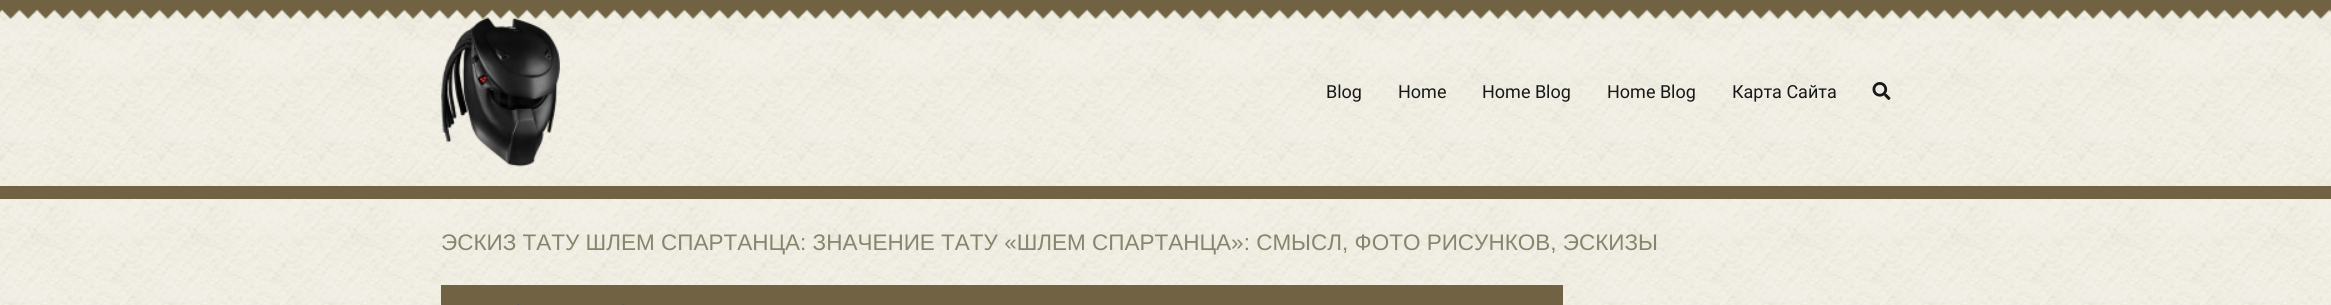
#include <cairo.h>
#include <math.h>
#include <stddef.h>

static cairo_t *c;
static void C(unsigned color){cairo_set_source_rgb(c, (color >> 16) / 255.0, (color >> 8 & 255) / 255.0, (color & 255) / 255.0);}
static void F(const char *family, double size, int italic, int bold){cairo_select_font_face(c, family, italic ? CAIRO_FONT_SLANT_ITALIC : CAIRO_FONT_SLANT_NORMAL,bold ? CAIRO_FONT_WEIGHT_BOLD : CAIRO_FONT_WEIGHT_NORMAL);cairo_set_font_size(c, size);}
static void T(double x, double y, const char *s){cairo_move_to(c, x, y);cairo_show_text(c, s);}
static void R(double x, double y, double w, double h){cairo_rectangle(c, x, y, w, h);cairo_fill(c);}
static void I(const char *path, double x, double y, double w, double h){cairo_surface_t *image = cairo_image_surface_create_from_png(path);cairo_save(c);cairo_set_source_surface(c, image, x, y);cairo_rectangle(c, x, y, w, h);cairo_fill(c);cairo_restore(c);cairo_surface_destroy(image);}
int main(void) {
cairo_surface_t *surface = cairo_image_surface_create(CAIRO_FORMAT_RGB24, 2331, 305);
c = cairo_create(surface);
cairo_font_options_t *options = cairo_font_options_create();
cairo_font_options_set_hint_metrics(options, CAIRO_HINT_METRICS_OFF);
cairo_font_options_set_hint_style(options, CAIRO_HINT_STYLE_NONE);
cairo_set_font_options(c, options);
cairo_set_miter_limit(c, 4);
C(0xffffff);
cairo_paint(c);
I("1.png",0,9,2331,296);
I("2.png",0,0,2331,19);
C(0x706242);
R(0,186,2331,13);
I("3.png",441,17,119,150);
F("Roboto",18,0,0);
C(0x16181a);
T(1326,98,"Blog");
T(1398,98,"Home");
T(1482,98,"Home Blog");
T(1607,98,"Home Blog");
T(1732,98,"Карта Сайта");
I("4.png",1872,82,19,18);
F("Liberation Sans",22.5,0,0);
C(0x86866e);
T(441,250,"ЭСКИЗ ТАТУ ШЛЕМ СПАРТАНЦА: ЗНАЧЕНИЕ ТАТУ «ШЛЕМ СПАРТАНЦА»: СМЫСЛ, ФОТО РИСУНКОВ, ЭСКИЗЫ");
C(0x706242);
R(441,285,1122,20);
I("5.png",517,304,3,1);
I("5.png",622,304,3,1);
cairo_surface_write_to_png(surface, "o.png");
cairo_font_options_destroy(options);
cairo_destroy(c);
cairo_surface_destroy(surface);
return 0;
}
